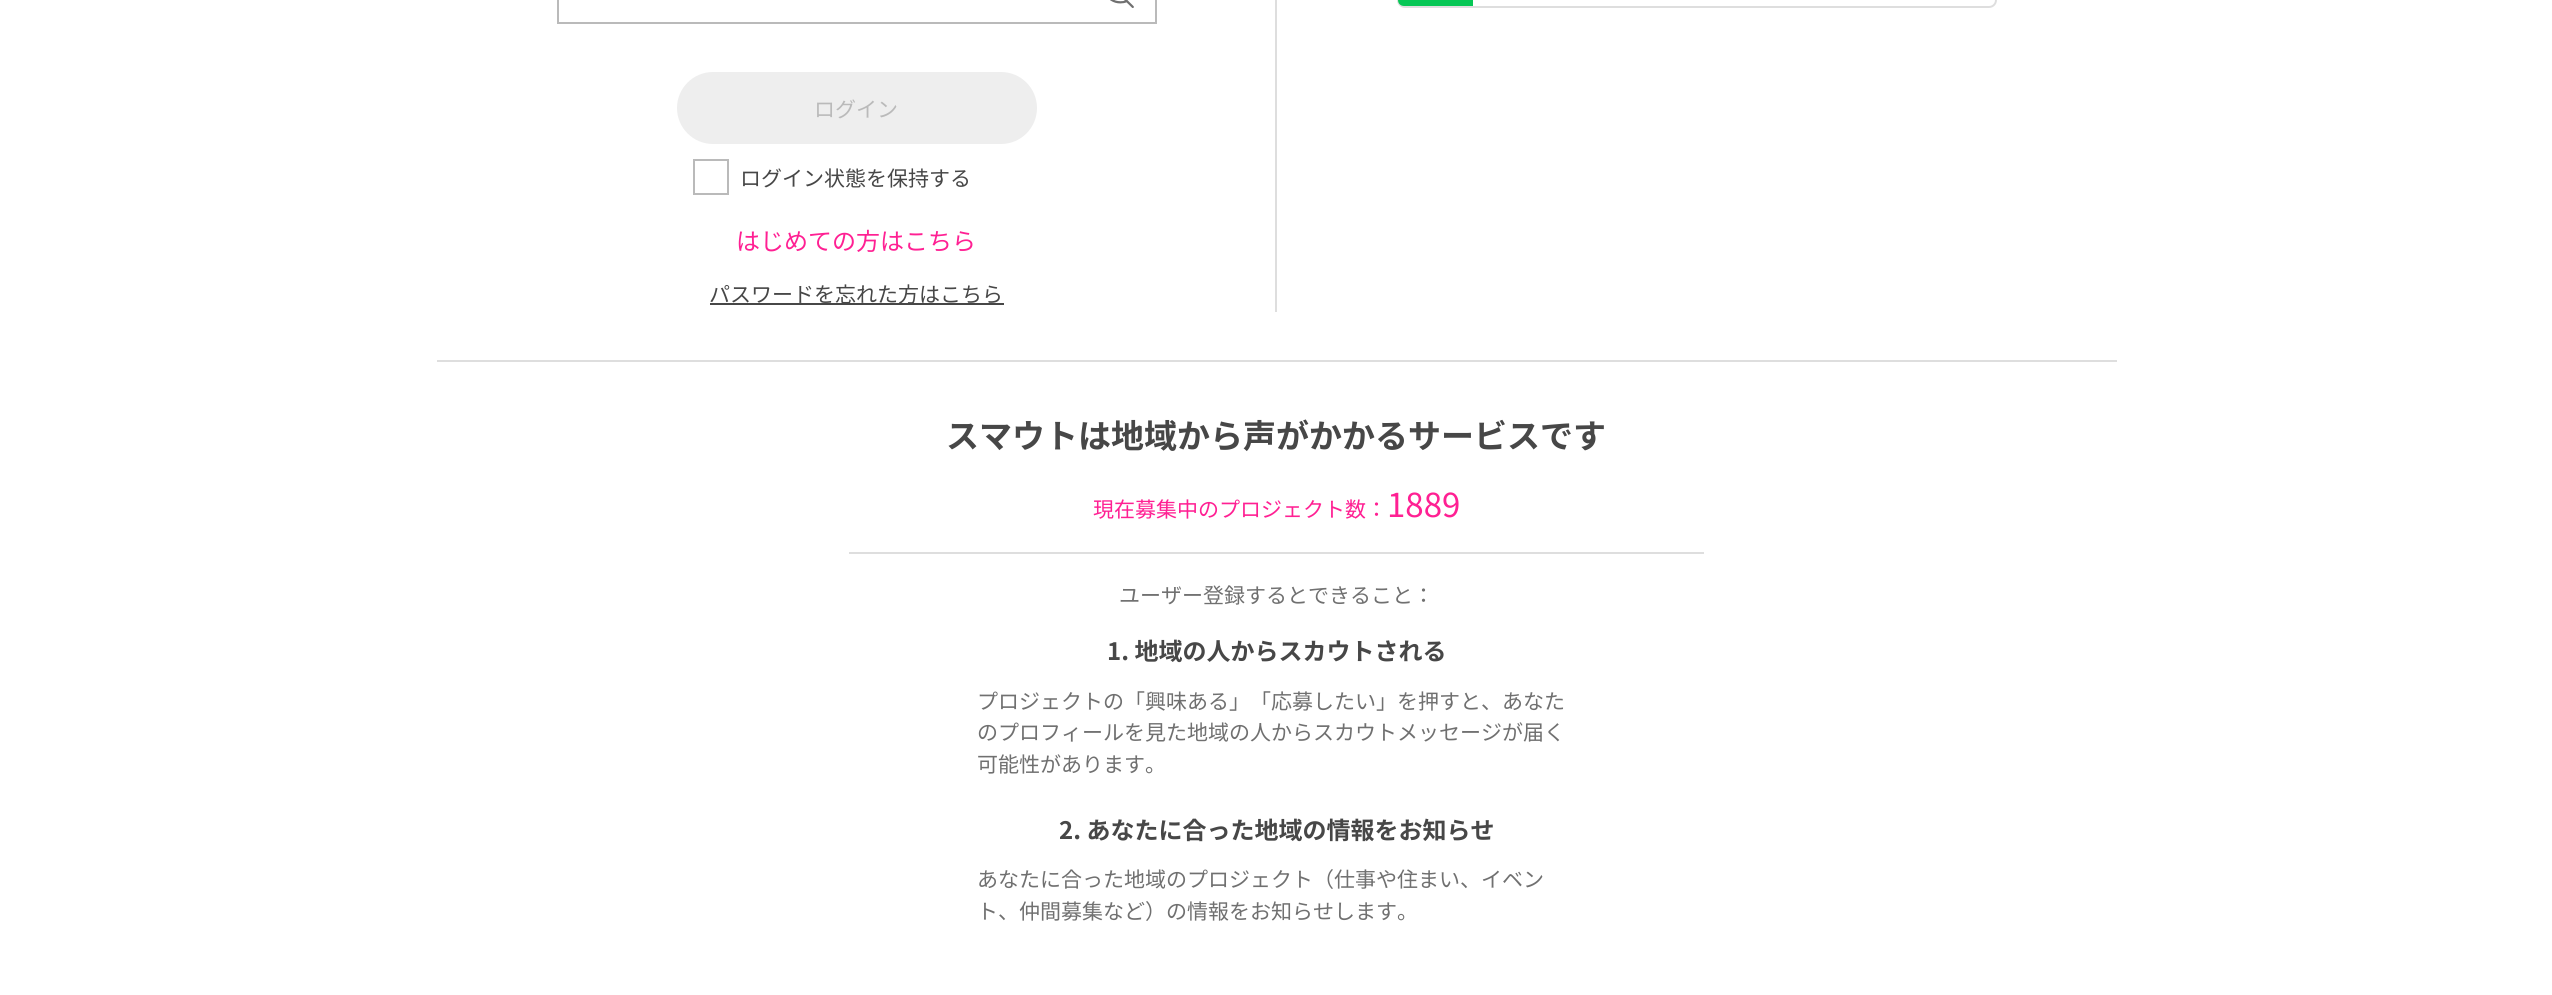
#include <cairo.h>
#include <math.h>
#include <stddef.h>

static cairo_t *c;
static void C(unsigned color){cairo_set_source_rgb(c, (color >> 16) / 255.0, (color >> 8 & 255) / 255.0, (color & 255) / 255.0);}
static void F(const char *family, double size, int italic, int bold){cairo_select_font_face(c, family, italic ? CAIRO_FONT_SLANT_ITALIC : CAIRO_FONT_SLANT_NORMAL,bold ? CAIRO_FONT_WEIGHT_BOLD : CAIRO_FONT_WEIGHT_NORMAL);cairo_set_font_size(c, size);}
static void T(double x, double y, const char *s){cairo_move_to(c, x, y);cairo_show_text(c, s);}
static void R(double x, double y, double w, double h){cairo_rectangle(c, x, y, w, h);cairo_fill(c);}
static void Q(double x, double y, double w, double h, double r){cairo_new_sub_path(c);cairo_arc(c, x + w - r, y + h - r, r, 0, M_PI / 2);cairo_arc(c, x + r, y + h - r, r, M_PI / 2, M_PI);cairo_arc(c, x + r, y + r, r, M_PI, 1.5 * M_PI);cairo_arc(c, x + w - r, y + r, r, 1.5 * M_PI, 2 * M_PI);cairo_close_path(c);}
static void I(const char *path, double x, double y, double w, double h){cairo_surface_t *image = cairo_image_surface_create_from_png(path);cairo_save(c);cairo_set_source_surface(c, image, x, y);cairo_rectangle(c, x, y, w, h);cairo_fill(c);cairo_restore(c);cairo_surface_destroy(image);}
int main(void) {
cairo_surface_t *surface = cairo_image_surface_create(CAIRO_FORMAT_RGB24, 2552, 995);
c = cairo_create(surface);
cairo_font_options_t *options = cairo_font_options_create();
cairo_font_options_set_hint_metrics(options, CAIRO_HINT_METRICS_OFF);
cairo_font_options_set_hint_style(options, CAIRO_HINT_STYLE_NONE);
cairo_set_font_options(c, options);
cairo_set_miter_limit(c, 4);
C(0xffffff);
cairo_paint(c);
C(0xdedede);
R(437,360,1680,2);
Q(1398,-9,598,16,7);
cairo_stroke(c);
C(0x06c755);
cairo_new_path(c);
cairo_move_to(c,1404,-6);
cairo_line_to(c,1473,-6);
cairo_line_to(c,1473,6);
cairo_line_to(c,1404,6);
cairo_curve_to(c,1400.5,6,1398,3.5,1398,0);
cairo_curve_to(c,1398,-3.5,1400.5,-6,1404,-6);
cairo_close_path(c);
cairo_fill(c);
C(0xdedede);
R(1275,0,2,312);
cairo_rectangle(c,558,-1,598,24);
C(0xbababa);
cairo_stroke(c);
I("1.png",1110,0,24,8);
C(0xeeeeee);
Q(677,72,360,72,36);
cairo_fill(c);
F("Noto Sans JP",21,0,0);
C(0xbababa);
T(814,117,"ログイン");
cairo_rectangle(c,694,160,34,34);
cairo_stroke(c);
C(0x474747);
T(740,186,"ログイン状態を保持する");
F("Noto Sans JP",24,0,0);
C(0xff2093);
T(736,250,"はじめての方はこちら");
C(0x474747);
R(710,303,294,2);
F("Noto Sans JP",21,0,0);
T(709,302,"パスワードを忘れた方はこちら");
F("Noto Sans JP",33,0,1);
T(946,448,"スマウトは地域から声がかかるサービスです");
C(0xdedede);
R(849,552,855,2);
F("Noto Sans JP",21,0,0);
C(0xff2093);
T(1093,517,"現在募集中のプロジェクト数：");
F("Noto Sans JP",33,0,0);
T(1387,517,"1889");
F("Noto Sans JP",21,0,0);
C(0x707070);
T(1119,603,"ユーザー登録するとできること：");
F("Noto Sans JP",24,0,1);
C(0x474747);
T(1107,660,"1. 地域の人からスカウトされる");
F("Noto Sans JP",21,0,0);
C(0x707070);
T(977,709,"プロジェクトの「興味ある」「応募したい」を押すと、あなた");
T(977,740,"のプロフィールを見た地域の人からスカウトメッセージが届く");
T(977,772,"可能性があります。");
F("Noto Sans JP",24,0,1);
C(0x474747);
T(1059,839,"2. あなたに合った地域の情報をお知らせ");
F("Noto Sans JP",21,0,0);
C(0x707070);
T(977,887,"あなたに合った地域のプロジェクト（仕事や住まい、イベン");
T(977,919,"ト、仲間募集など）の情報をお知らせします。");
cairo_surface_write_to_png(surface, "o.png");
cairo_font_options_destroy(options);
cairo_destroy(c);
cairo_surface_destroy(surface);
return 0;
}
